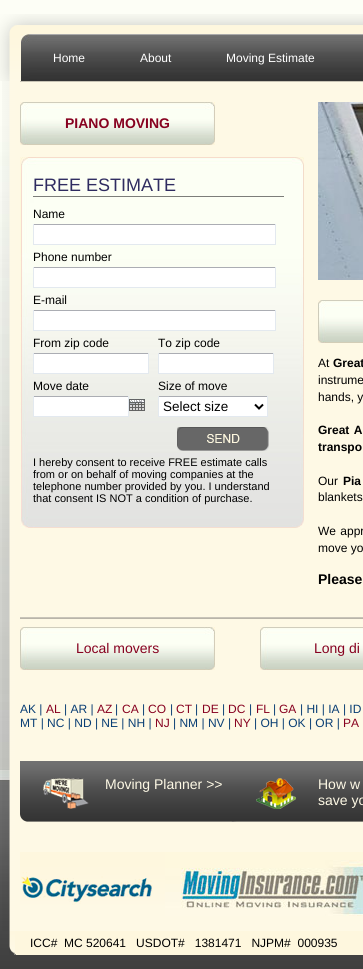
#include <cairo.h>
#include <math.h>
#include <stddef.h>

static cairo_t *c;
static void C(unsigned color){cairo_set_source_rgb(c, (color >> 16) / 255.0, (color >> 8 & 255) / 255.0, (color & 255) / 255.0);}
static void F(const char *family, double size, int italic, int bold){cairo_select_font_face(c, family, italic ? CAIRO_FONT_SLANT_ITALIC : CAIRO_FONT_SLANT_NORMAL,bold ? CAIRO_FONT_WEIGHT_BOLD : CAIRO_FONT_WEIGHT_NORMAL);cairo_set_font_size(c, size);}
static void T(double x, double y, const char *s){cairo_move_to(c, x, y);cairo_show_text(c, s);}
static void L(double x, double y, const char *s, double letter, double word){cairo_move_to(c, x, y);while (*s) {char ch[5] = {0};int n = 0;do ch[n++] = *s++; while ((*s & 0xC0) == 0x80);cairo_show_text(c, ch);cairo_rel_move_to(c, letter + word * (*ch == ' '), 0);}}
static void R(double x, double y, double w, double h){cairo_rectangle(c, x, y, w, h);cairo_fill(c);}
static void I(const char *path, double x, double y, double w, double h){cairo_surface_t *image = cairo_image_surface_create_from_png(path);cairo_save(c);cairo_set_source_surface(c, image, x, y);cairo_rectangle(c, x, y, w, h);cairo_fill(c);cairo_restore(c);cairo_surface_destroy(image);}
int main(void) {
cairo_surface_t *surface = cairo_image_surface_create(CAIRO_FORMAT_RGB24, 363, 969);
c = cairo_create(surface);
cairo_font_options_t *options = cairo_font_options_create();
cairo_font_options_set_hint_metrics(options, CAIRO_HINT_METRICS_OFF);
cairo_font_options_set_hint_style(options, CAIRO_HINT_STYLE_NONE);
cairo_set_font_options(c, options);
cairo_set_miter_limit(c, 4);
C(0xffffff);
cairo_paint(c);
I("1.png",0,0,363,969);
I("2.png",0,14,363,67);
I("3.png",21,34,342,47);
F("Liberation Sans",12,0,0);
C(0xffffff);
T(53,62,"Home");
T(140,62,"About");
T(226,62,"Moving Estimate");
I("4.png",2,81,361,850);
C(0xc7c3b4);
R(20,81,343,1);
I("5.png",20,102,195,43);
F("Liberation Sans",14,0,1);
C(0x870120);
T(65,128,"PIANO MOVING");
I("6.png",20,157,284,371);
C(0x7c7d79);
R(33,196,251,1);
F("Liberation Sans",18,0,0);
C(0x2f2c60);
T(33,191,"FREE ESTIMATE");
F("Liberation Sans",12,0,0);
C(0x000000);
T(33,218,"Name");
C(0xffffff);
R(34,225,241,19);
C(0xabadb3);
R(33,224,243,1);
C(0xe3e9ef);
R(275,224,1,21);
R(33,244,243,1);
R(33,224,1,21);
C(0x000000);
T(33,261,"Phone number");
C(0xffffff);
R(34,268,241,19);
C(0xabadb3);
R(33,267,243,1);
C(0xe3e9ef);
R(275,267,1,21);
R(33,287,243,1);
R(33,267,1,21);
C(0x000000);
T(33,304,"E-mail");
C(0xffffff);
R(34,311,241,19);
C(0xabadb3);
R(33,310,243,1);
C(0xe3e9ef);
R(275,310,1,21);
R(33,330,243,1);
R(33,310,1,21);
C(0x000000);
T(33,347,"From zip code");
T(158,347,"To zip code");
C(0xffffff);
R(34,354,114,19);
C(0xabadb3);
R(33,353,116,1);
C(0xe3e9ef);
R(148,353,1,21);
R(33,373,116,1);
R(33,353,1,21);
C(0xffffff);
R(159,354,114,19);
C(0xabadb3);
R(158,353,116,1);
C(0xe3e9ef);
R(273,353,1,21);
R(158,373,116,1);
R(158,353,1,21);
C(0x000000);
T(33,390,"Move date");
T(158,390,"Size of move");
C(0xffffff);
R(34,397,94,19);
C(0xabadb3);
R(33,396,96,1);
C(0xe3e9ef);
R(128,396,1,21);
R(33,416,96,1);
R(33,396,1,21);
I("7.png",129,399,16,12);
C(0xffffff);
R(159,397,108,19);
C(0xabadb3);
R(158,396,110,1);
C(0xe3e9ef);
R(267,396,1,21);
R(158,416,110,1);
R(158,396,1,21);
cairo_new_path(c);
cairo_move_to(c,255,404.5);
cairo_line_to(c,259,408.5);
cairo_line_to(c,263,404.5);
C(0x000000);
cairo_stroke(c);
F("Liberation Sans",13.5,0,0);
T(163,411,"Select size");
I("8.png",177,427,92,24);
F("Liberation Sans",11,0,0);
T(33,466,"I hereby consent to receive FREE estimate calls");
T(33,478,"from or on behalf of moving companies at the");
T(33,490,"telephone number provided by you. I understand");
T(33,502,"that consent IS NOT a condition of purchase.");
I("9.png",318,102,45,178);
I("10.png",318,300,45,43);
F("Liberation Sans",12,0,0);
T(318,367,"At");
F("Liberation Sans",12,0,1);
T(333,367,"Great");
F("Liberation Sans",12,0,0);
L(318,384,"instrume",0,1);
T(318,401,"hands, y");
F("Liberation Sans",12,0,1);
L(318,434,"Great A",0,1);
T(318,451,"transpo");
F("Liberation Sans",12,0,0);
T(318,485,"Our");
F("Liberation Sans",12,0,1);
L(343,485,"Pia",0,2);
F("Liberation Sans",12,0,0);
T(318,501,"blankets");
L(318,535,"We appr",0,1);
T(318,552,"move yo");
F("Liberation Sans",14,0,1);
T(318,584,"Please");
I("11.png",20,617,343,2);
I("5.png",20,627,195,43);
F("Liberation Sans",14,0,0);
C(0x870120);
T(76,653,"Local movers");
I("12.png",260,627,103,43);
T(314,653,"Long di");
F("Liberation Sans",12,0,0);
C(0x093e74);
T(20,713,"AK |");
C(0x870120);
T(46,713,"AL");
C(0x093e74);
T(64,713,"| AR |");
C(0x870120);
T(97,713,"AZ");
C(0x093e74);
T(115,713,"|");
C(0x870120);
T(122,713,"CA");
C(0x093e74);
T(142,713,"|");
C(0x870120);
T(148,713,"CO");
C(0x093e74);
T(170,713,"|");
C(0x870120);
T(176,713,"CT");
C(0x093e74);
T(195,713,"|");
C(0x870120);
T(202,713,"DE");
C(0x093e74);
T(222,713,"|");
C(0x870120);
T(228,713,"DC");
C(0x093e74);
T(249,713,"|");
C(0x870120);
T(256,713,"FL");
C(0x093e74);
T(273,713,"|");
C(0x870120);
T(279,713,"GA");
C(0x093e74);
T(300,713,"| HI | IA | ID");
T(20,727,"MT | NC | ND | NE | NH |");
C(0x870120);
T(155,727,"NJ");
C(0x093e74);
T(173,727,"| NM | NV |");
C(0x870120);
T(234,727,"NY");
C(0x093e74);
T(254,727,"| OH | OK | OR |");
C(0x870120);
T(343,727,"PA");
I("13.png",20,761,343,61);
I("14.png",43,778,46,31);
F("Liberation Sans",14,0,0);
C(0xfef9e5);
T(105,789,"Moving Planner >>");
I("15.png",256,778,40,31);
T(318,789,"How w");
T(318,805,"save yo");
I("16.png",20,852,145,53);
I("17.png",165,852,198,64);
I("18.png",9,931,354,24);
F("Liberation Sans",12,0,0);
C(0x000000);
T(30,947,"ICC#  MC 520641   USDOT#   1381471   NJPM#  000935");
cairo_surface_write_to_png(surface, "o.png");
cairo_font_options_destroy(options);
cairo_destroy(c);
cairo_surface_destroy(surface);
return 0;
}
